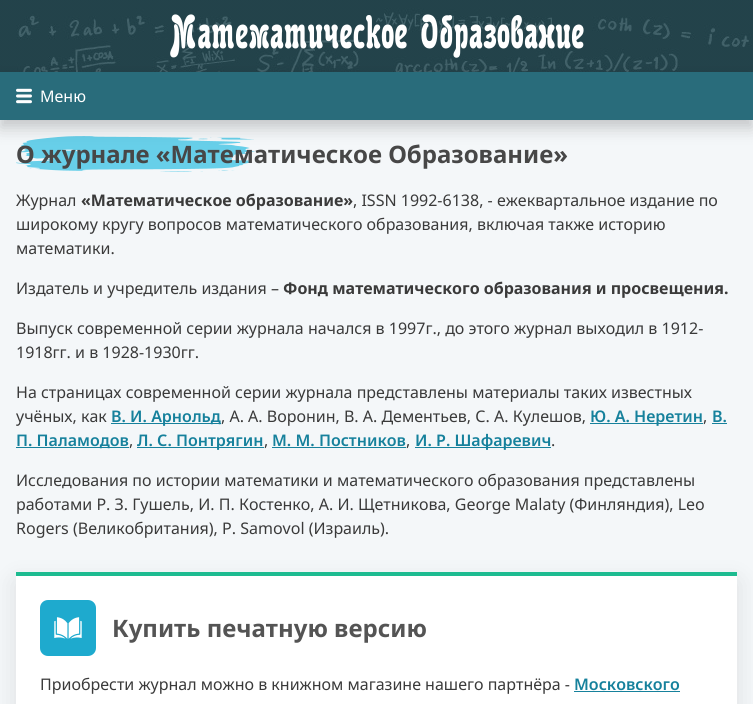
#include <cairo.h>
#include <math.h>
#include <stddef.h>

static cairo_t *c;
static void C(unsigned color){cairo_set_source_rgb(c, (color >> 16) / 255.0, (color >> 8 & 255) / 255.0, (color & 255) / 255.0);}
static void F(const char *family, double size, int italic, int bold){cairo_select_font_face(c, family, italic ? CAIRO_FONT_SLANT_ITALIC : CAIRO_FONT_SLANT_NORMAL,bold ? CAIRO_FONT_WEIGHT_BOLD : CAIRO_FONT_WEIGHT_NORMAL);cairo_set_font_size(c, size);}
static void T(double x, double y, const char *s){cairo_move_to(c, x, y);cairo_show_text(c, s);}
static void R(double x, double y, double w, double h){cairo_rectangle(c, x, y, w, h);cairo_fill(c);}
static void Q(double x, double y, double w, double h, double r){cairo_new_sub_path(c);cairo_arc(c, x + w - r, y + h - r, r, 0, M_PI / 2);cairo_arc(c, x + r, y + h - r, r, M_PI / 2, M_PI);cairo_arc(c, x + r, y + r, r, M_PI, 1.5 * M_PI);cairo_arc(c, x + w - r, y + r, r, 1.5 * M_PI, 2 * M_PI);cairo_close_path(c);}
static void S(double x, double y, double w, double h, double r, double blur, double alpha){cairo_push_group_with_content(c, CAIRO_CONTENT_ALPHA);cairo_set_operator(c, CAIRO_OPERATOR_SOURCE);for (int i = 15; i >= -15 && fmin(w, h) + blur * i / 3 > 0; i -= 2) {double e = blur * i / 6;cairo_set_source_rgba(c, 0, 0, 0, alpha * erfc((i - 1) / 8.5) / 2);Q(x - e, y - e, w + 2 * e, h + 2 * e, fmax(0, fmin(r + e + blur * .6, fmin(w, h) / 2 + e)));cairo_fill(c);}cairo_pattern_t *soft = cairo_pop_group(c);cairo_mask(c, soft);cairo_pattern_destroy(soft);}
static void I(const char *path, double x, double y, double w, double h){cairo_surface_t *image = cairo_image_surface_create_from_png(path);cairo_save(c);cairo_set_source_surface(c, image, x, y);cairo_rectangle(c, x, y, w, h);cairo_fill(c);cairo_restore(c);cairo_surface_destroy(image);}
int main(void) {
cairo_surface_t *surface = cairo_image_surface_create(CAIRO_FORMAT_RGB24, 753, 704);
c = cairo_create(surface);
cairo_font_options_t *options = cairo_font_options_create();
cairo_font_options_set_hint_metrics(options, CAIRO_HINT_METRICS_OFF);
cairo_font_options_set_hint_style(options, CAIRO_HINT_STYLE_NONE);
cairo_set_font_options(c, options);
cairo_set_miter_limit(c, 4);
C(0xf4f7f9);
cairo_paint(c);
I("1.png",0,0,753,72);
F("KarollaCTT",48,0,0);
C(0xffffff);
T(168,48,"Математическое Образование");
I("3.png",16,136,245,36);
C(0x000000);
S(0,80,753,48,0,8,.2);
C(0x296c7b);
R(0,72,753,48);
I("2.png",16,88,16,16);
F("Noto Sans",16,0,0);
C(0xffffff);
T(40,102,"Меню");
F("Noto Sans",24,0,1);
C(0x474747);
T(16,163,"О журнале «Математическое Образование»");
F("Noto Sans",16,0,0);
C(0x3a3a3a);
T(16,206,"Журнал");
F("Noto Sans",16,0,1);
T(81,206,"«Математическое образование»");
F("Noto Sans",16,0,0);
T(353,206,", ISSN 1992-6138, - ежеквартальное издание по");
T(16,230,"широкому кругу вопросов математического образования, включая также историю");
T(16,254,"математики.");
T(16,294,"Издатель и учредитель издания –");
F("Noto Sans",16,0,1);
T(283,294,"Фонд математического образования и просвещения.");
F("Noto Sans",16,0,0);
T(16,334,"Выпуск современной серии журнала начался в 1997г., до этого журнал выходил в 1912-");
T(16,358,"1918гг. и в 1928-1930гг.");
T(16,398,"На страницах современной серии журнала представлены материалы таких известных");
T(16,422,"учёных, как");
C(0x16819c);
R(111,423,110,1);
F("Noto Sans SemiBold",16,0,0);
T(111,422,"В. И. Арнольд");
F("Noto Sans",16,0,0);
C(0x3a3a3a);
T(221,422,", А. А. Воронин, В. А. Дементьев, С. А. Кулешов,");
C(0x16819c);
R(590,423,113,1);
F("Noto Sans SemiBold",16,0,0);
T(590,422,"Ю. А. Неретин");
F("Noto Sans",16,0,0);
C(0x3a3a3a);
T(703,422,",");
F("Noto Sans SemiBold",16,0,0);
C(0x16819c);
T(712,422,"В.");
R(712,423,15,1);
R(16,447,113,1);
T(16,446,"П. Паламодов");
F("Noto Sans",16,0,0);
C(0x3a3a3a);
T(129,446,",");
C(0x16819c);
R(137,447,127,1);
F("Noto Sans SemiBold",16,0,0);
T(137,446,"Л. С. Понтрягин");
F("Noto Sans",16,0,0);
C(0x3a3a3a);
T(264,446,",");
F("Noto Sans SemiBold",16,0,0);
C(0x16819c);
T(272,446,"М. М. Постников");
R(272,447,134,1);
F("Noto Sans",16,0,0);
C(0x3a3a3a);
T(406,446,",");
C(0x16819c);
R(415,447,136,1);
F("Noto Sans SemiBold",16,0,0);
T(415,446,"И. Р. Шафаревич");
F("Noto Sans",16,0,0);
C(0x3a3a3a);
T(551,446,".");
T(16,486,"Исследования по истории математики и математического образования представлены");
T(16,510,"работами Р. З. Гушель, И. П. Костенко, А. И. Щетникова, George Malaty (Финляндия), Leo");
T(16,534,"Rogers (Великобритания), P. Samovol (Израиль).");
C(0x000000);
S(16,582,721,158,0,12,.1);
C(0xffffff);
R(16,576,721,128);
C(0x1dbb90);
R(16,572,721,4);
C(0x1eaace);
Q(40,600,56,56,8);
cairo_fill(c);
I("4.png",54,617,28,22);
F("Noto Sans",24,0,1);
C(0x545454);
T(112,637,"Купить печатную версию");
F("Noto Sans",16,0,0);
C(0x3a3a3a);
T(40,690,"Приобрести журнал можно в книжном магазине нашего партнёра -");
F("Noto Sans SemiBold",16,0,0);
C(0x16819c);
T(574,690,"Московского");
R(574,691,106,1);
cairo_surface_write_to_png(surface, "o.png");
cairo_font_options_destroy(options);
cairo_destroy(c);
cairo_surface_destroy(surface);
return 0;
}
